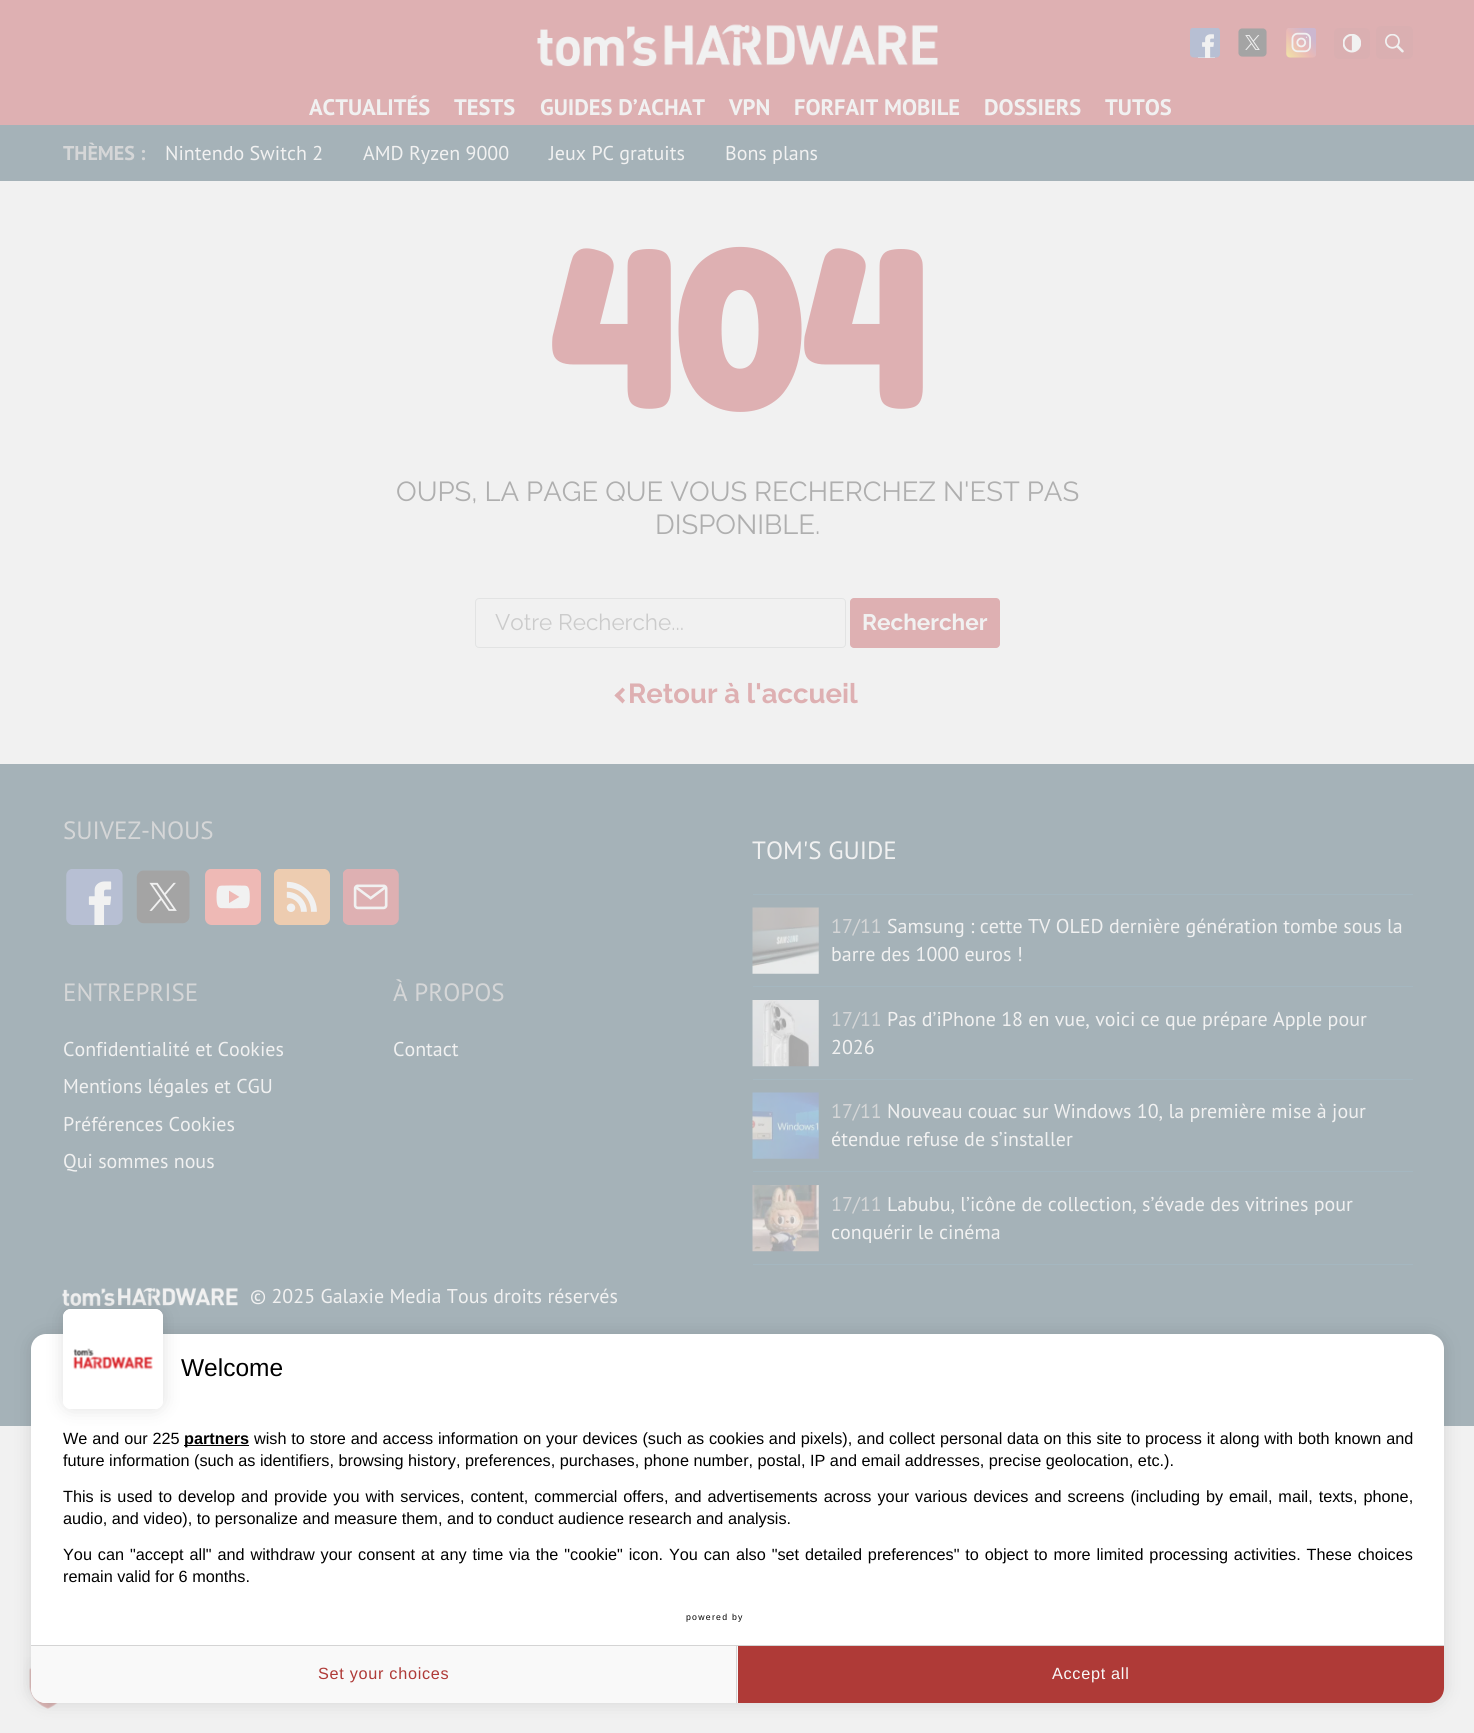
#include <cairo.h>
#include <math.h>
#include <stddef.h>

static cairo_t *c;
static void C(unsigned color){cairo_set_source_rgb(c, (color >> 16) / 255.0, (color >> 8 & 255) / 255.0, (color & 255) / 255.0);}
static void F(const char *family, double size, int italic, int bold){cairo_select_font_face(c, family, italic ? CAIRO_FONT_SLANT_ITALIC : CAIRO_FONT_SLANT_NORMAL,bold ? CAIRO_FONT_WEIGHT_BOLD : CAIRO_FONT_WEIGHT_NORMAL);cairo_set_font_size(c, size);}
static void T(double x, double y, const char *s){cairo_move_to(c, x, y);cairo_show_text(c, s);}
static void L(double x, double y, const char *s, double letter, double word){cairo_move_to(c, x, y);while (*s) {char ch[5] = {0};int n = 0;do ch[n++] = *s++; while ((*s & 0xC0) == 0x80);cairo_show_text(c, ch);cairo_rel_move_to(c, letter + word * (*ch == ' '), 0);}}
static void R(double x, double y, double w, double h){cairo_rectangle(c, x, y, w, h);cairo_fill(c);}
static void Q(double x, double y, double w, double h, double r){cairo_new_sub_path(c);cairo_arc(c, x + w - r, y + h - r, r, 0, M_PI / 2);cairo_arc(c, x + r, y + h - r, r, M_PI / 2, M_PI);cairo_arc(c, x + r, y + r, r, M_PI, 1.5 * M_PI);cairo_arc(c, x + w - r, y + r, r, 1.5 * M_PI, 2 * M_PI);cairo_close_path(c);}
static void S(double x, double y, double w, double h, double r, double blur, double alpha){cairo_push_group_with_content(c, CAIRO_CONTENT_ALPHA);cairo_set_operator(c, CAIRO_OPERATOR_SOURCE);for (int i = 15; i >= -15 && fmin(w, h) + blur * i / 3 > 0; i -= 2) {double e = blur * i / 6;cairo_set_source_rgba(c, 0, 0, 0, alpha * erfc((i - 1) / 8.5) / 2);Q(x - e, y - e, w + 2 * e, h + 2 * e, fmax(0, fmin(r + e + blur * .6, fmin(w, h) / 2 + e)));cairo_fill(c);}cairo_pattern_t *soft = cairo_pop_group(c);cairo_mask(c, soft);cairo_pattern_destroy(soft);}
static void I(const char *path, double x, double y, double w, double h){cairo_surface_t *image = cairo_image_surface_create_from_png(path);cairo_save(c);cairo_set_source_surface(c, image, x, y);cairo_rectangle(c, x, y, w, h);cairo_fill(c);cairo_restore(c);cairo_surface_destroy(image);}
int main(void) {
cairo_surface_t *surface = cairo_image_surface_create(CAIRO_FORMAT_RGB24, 1474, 1733);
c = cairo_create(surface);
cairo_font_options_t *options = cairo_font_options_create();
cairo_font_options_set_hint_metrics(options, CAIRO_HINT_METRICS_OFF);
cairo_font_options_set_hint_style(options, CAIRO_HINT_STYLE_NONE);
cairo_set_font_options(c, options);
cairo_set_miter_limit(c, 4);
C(0xf1f1f1);
cairo_paint(c);
C(0xdeb0b2);
R(0,0,1474,125);
I("1.png",537,24,401,43);
I("2.png",1190,28,30,30);
I("3.png",1238,28,29,29);
I("4.png",1286,28,30,30);
C(0xdaafb1);
Q(1334,28,36,31,5);
cairo_fill(c);
I("5.png",1343,34,18,19);
Q(1376,26,37,33,5);
cairo_fill(c);
I("6.png",1385,34,19,19);
F("PT Sans",22.5,0,1);
C(0xf1f1f1);
T(309,115,"ACTUALITÉS");
T(454,115,"TESTS");
T(540,115,"GUIDES D’ACHAT");
T(729,115,"VPN");
T(794,115,"FORFAIT MOBILE");
T(984,115,"DOSSIERS");
T(1105,115,"TUTOS");
C(0xa5b2b8);
R(0,125,1474,56);
F("PT Sans",20,0,1);
C(0xd5d6d7);
T(63,160,"THÈMES :");
F("PT Sans",20,0,0);
C(0xf1f1f1);
T(165,160,"Nintendo Switch 2");
T(363,160,"AMD Ryzen 9000");
T(549,160,"Jeux PC gratuits");
T(725,160,"Bons plans");
F("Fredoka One",210,0,1);
C(0xdeb0b2);
T(549,409,"404");
F("Raleway",27.5,0,0);
C(0xafafaf);
T(396,501,"OUPS, LA PAGE QUE VOUS RECHERCHEZ N'EST PAS");
T(655,534,"DISPONIBLE.");
Q(475.5,598.5,370,49,3.5);
C(0xe2e3e3);
cairo_set_line_width(c,1);
cairo_stroke(c);
F("Raleway",22.5,0,0);
C(0xcbcbcb);
T(495,630,"Votre Recherche...");
C(0xdeb0b2);
Q(850,598,150,50,4);
cairo_fill(c);
F("Raleway",22.5,0,1);
C(0xf1f1f1);
T(862,630,"Rechercher");
C(0xdeb0b2);
cairo_new_path(c);
cairo_move_to(c,625,700.5);
cairo_line_to(c,622.5,703.5);
cairo_line_to(c,614.5,695.5);
cairo_line_to(c,617.5,692.5);
cairo_close_path(c);
cairo_fill(c);
cairo_new_path(c);
cairo_move_to(c,625,690);
cairo_line_to(c,617.5,698);
cairo_line_to(c,614.5,695.5);
cairo_line_to(c,622.5,687.5);
cairo_close_path(c);
cairo_fill(c);
F("Raleway",27.5,0,1);
T(628,703,"Retour à l'accueil");
C(0xa5b2b8);
R(0,764,1474,662);
F("PT Sans",25,0,0);
C(0xd5d6d7);
T(63,839,"SUIVEZ-NOUS");
I("7.png",66,869,57,56);
I("8.png",136,870,54,54);
I("9.png",205,869,56,56);
I("10.png",274,869,56,56);
I("11.png",343,869,56,56);
T(63,1001,"ENTREPRISE");
F("PT Sans",20,0,0);
C(0xf1f1f1);
T(63,1056,"Confidentialité et Cookies");
T(63,1093,"Mentions légales et CGU");
T(63,1131,"Préférences Cookies");
T(63,1168,"Qui sommes nous");
F("PT Sans",25,0,0);
C(0xd5d6d7);
T(393,1001,"À PROPOS");
F("PT Sans",20,0,0);
C(0xf1f1f1);
T(393,1056,"Contact");
I("12.png",62,1287,176,19);
T(250,1303,"© 2025 Galaxie Media Tous droits réservés");
F("PT Sans",25,0,0);
T(752,859,"TOM'S GUIDE");
C(0xa5b7c0);
R(753,894,660,1);
R(753,986,660,1);
I("13.png",752,907,67,67);
F("PT Sans",20,0,0);
C(0xd5d6d7);
T(831,933,"17/11");
C(0xf1f1f1);
T(887,933,"Samsung : cette TV OLED dernière génération tombe sous la");
T(831,961,"barre des 1000 euros !");
C(0xa5b7c0);
R(753,1079,660,1);
I("14.png",752,1000,67,67);
C(0xd5d6d7);
T(831,1026,"17/11");
C(0xf1f1f1);
T(887,1026,"Pas d’iPhone 18 en vue, voici ce que prépare Apple pour");
T(831,1054,"2026");
C(0xa5b7c0);
R(753,1171,660,1);
I("15.png",752,1092,67,67);
C(0xd5d6d7);
T(831,1118,"17/11");
C(0xf1f1f1);
T(887,1118,"Nouveau couac sur Windows 10, la première mise à jour");
T(831,1146,"étendue refuse de s’installer");
C(0xa5b7c0);
R(753,1264,660,1);
I("16.png",752,1185,67,67);
C(0xd5d6d7);
T(831,1211,"17/11");
C(0xf1f1f1);
T(887,1211,"Labubu, l’icône de collection, s’évade des vitrines pour");
T(831,1239,"conquérir le cinéma");
I("17.png",23,1657,35,52);
C(0x000000);
S(31,1334,1413,369,15,9.5,.12);
C(0xffffff);
Q(31,1334,1413,369,15);
cairo_fill(c);
C(0x000000);
S(63,1309,100,100,8,9.5,.12);
C(0xffffff);
Q(63,1309,100,100,8);
cairo_fill(c);
I("18.png",73,1348,80,22);
Q(66,1312,94,94,5);
cairo_set_line_width(c,6);
cairo_stroke(c);
F("Liberation Sans",24.5,0,0);
C(0x000000);
T(181,1376,"Welcome");
F("Liberation Sans",16.25,0,0);
L(63,1444,"We and our 225",0,.3);
R(184,1445,65,1);
F("Liberation Sans",16.25,0,1);
T(184,1444,"partners");
F("Liberation Sans",16.25,0,0);
L(254,1444,"wish to store and access information on your devices (such as cookies and pixels), and collect personal data on this site to process it along with both known and",0,.3);
T(63,1466,"future information (such as identifiers, browsing history, preferences, purchases, phone number, postal, IP and email addresses, precise geolocation, etc.).");
L(63,1502,"This is used to develop and provide you with services, content, commercial offers, and advertisements across your various devices and screens (including by email, mail, texts, phone,",0,1.45);
T(63,1524,"audio, and video), to personalize and measure them, and to conduct audience research and analysis.");
L(63,1560,"You can \"accept all\" and withdraw your consent at any time via the \"cookie\" icon. You can also \"set detailed preferences\" to object to more limited processing activities. These choices",0,1.4);
T(63,1582,"remain valid for 6 months.");
F("Liberation Sans",8.75,0,0);
L(686,1620,"powered by",1.25,0);
C(0xf9f9f9);
cairo_new_path(c);
cairo_move_to(c,31,1645);
cairo_line_to(c,738,1645);
cairo_line_to(c,738,1703);
cairo_line_to(c,46,1703);
cairo_curve_to(c,37.5,1703,31,1696.5,31,1688);
cairo_close_path(c);
cairo_fill(c);
C(0xd4d4d4);
R(31,1645,707,1);
R(736,1645,1,58);
F("Liberation Sans",16.25,0,0);
C(0xaf3a37);
L(318,1679,"Set your choices",.7,0);
cairo_new_path(c);
cairo_move_to(c,738,1645);
cairo_line_to(c,1444,1645);
cairo_line_to(c,1444,1688);
cairo_curve_to(c,1444,1696.5,1437.5,1703,1429,1703);
cairo_line_to(c,738,1703);
cairo_close_path(c);
cairo_fill(c);
C(0xd4d4d4);
R(738,1645,706,1);
C(0xf9f9f9);
L(1052,1679,"Accept all",.7,0);
cairo_surface_write_to_png(surface, "o.png");
cairo_font_options_destroy(options);
cairo_destroy(c);
cairo_surface_destroy(surface);
return 0;
}
